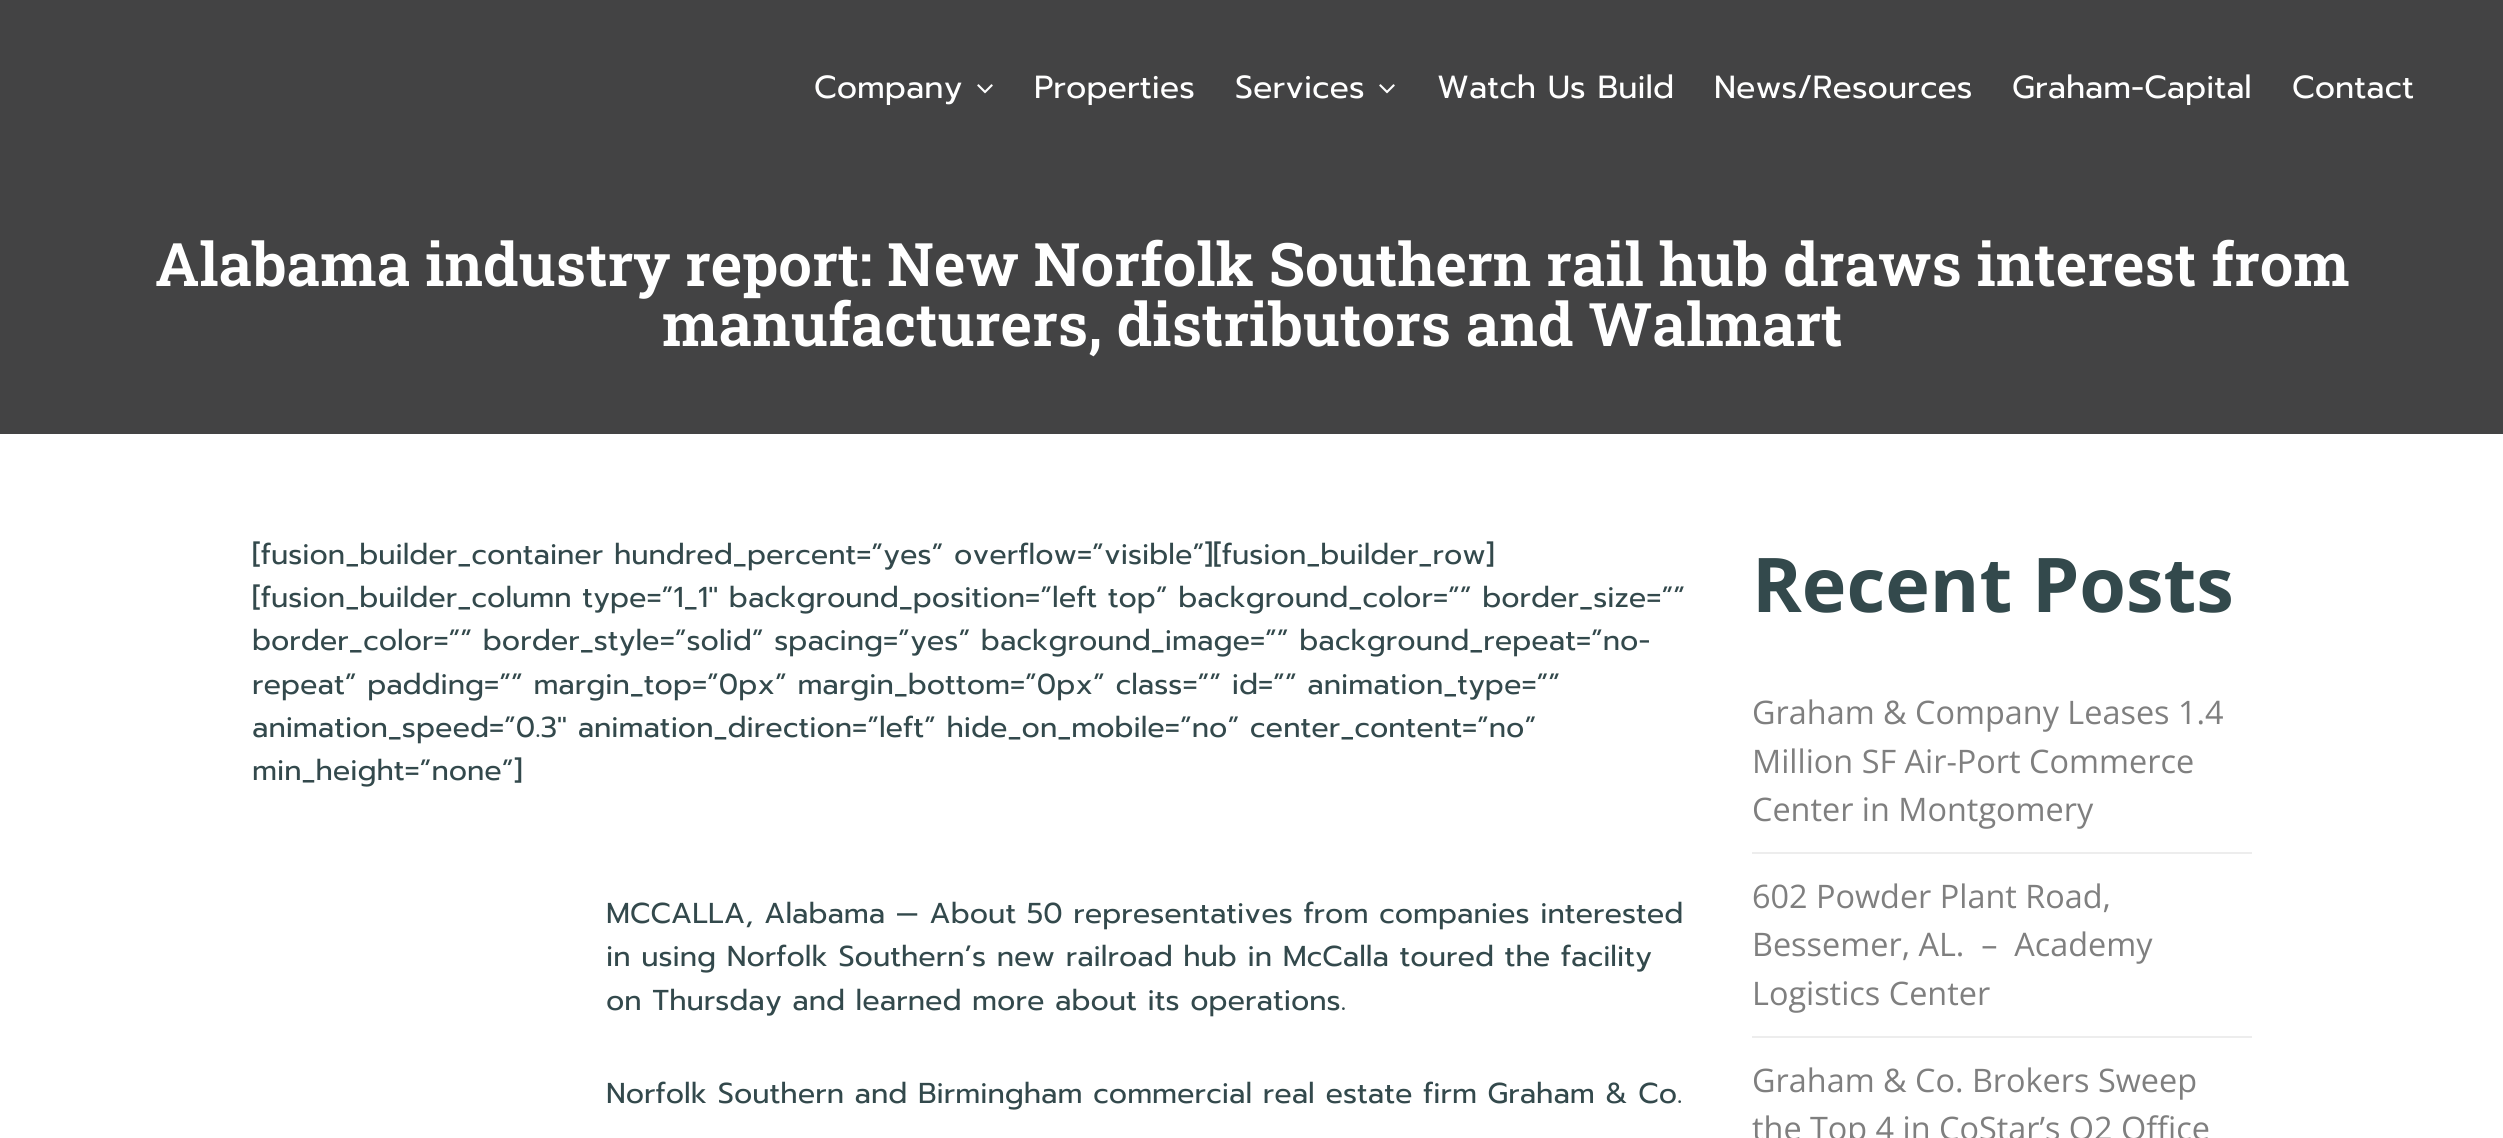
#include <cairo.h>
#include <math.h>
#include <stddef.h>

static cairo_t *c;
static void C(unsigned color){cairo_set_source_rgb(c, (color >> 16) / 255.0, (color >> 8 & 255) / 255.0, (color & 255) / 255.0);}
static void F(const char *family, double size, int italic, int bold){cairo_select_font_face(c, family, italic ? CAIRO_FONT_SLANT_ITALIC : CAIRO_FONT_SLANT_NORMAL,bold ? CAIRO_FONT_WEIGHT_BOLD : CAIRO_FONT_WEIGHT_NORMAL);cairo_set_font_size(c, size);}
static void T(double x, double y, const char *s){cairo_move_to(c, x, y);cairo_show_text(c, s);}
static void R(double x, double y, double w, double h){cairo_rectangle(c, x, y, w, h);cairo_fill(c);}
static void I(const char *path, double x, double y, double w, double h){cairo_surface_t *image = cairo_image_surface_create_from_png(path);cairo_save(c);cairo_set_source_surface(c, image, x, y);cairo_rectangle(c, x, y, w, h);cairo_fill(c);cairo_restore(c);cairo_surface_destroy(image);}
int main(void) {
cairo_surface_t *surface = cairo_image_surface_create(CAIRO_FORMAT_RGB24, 2503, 1138);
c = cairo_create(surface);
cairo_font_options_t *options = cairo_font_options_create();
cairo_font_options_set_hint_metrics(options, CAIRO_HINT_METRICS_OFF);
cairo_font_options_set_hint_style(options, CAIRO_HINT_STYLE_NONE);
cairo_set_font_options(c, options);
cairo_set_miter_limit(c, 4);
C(0xffffff);
cairo_paint(c);
C(0x434344);
R(0,0,2503,434);
F("Prompt",32,0,0);
C(0xffffff);
T(814,98,"Company");
I("1.png",977,84,16,10);
T(1034,98,"Properties");
T(1235,98,"Services");
I("1.png",1379,84,16,10);
T(1437,98,"Watch Us Build");
T(1714,98,"News/Resources");
T(2012,98,"Graham-Capital");
T(2292,98,"Contact");
F("Roboto Slab SemiBold",60,0,0);
T(155,286,"Alabama industry report: New Norfolk Southern rail hub draws interest from");
T(662,346,"manufacturers, distributors and Walmart");
F("Prompt",28.8,0,0);
C(0x33494c);
T(252,564,"[fusion_builder_container hundred_percent=”yes” overflow=”visible”][fusion_builder_row]");
T(252,607,"[fusion_builder_column type=”1_1″ background_position=”left top” background_color=”” border_size=””");
T(252,650,"border_color=”” border_style=”solid” spacing=”yes” background_image=”” background_repeat=”no-");
T(252,694,"repeat” padding=”” margin_top=”0px” margin_bottom=”0px” class=”” id=”” animation_type=””");
T(252,737,"animation_speed=”0.3″ animation_direction=”left” hide_on_mobile=”no” center_content=”no”");
T(252,780,"min_height=”none”]");
T(606,923,"MCCALLA, Alabama — About 50 representatives from companies interested");
T(606,966,"in using Norfolk Southern’s new railroad hub in McCalla toured the facility");
T(606,1010,"on Thursday and learned more about its operations.");
T(606,1103,"Norfolk Southern and Birmingham commercial real estate firm Graham & Co.");
F("Open Sans",75.5,0,1);
T(1752,612,"Recent Posts");
C(0xededed);
R(1752,852,500,2);
F("Open Sans",32.4,0,0);
C(0x7f7f7f);
T(1752,724,"Graham & Company Leases 1.4");
T(1752,773,"Million SF Air-Port Commerce");
T(1752,821,"Center in Montgomery");
C(0xededed);
R(1752,1036,500,2);
C(0x7f7f7f);
T(1752,908,"602 Powder Plant Road,");
T(1752,956,"Bessemer, AL.  –  Academy");
T(1752,1005,"Logistics Center");
T(1752,1092,"Graham & Co. Brokers Sweep");
T(1752,1140,"the Top 4 in CoStar’s Q2 Office");
cairo_surface_write_to_png(surface, "o.png");
cairo_font_options_destroy(options);
cairo_destroy(c);
cairo_surface_destroy(surface);
return 0;
}
